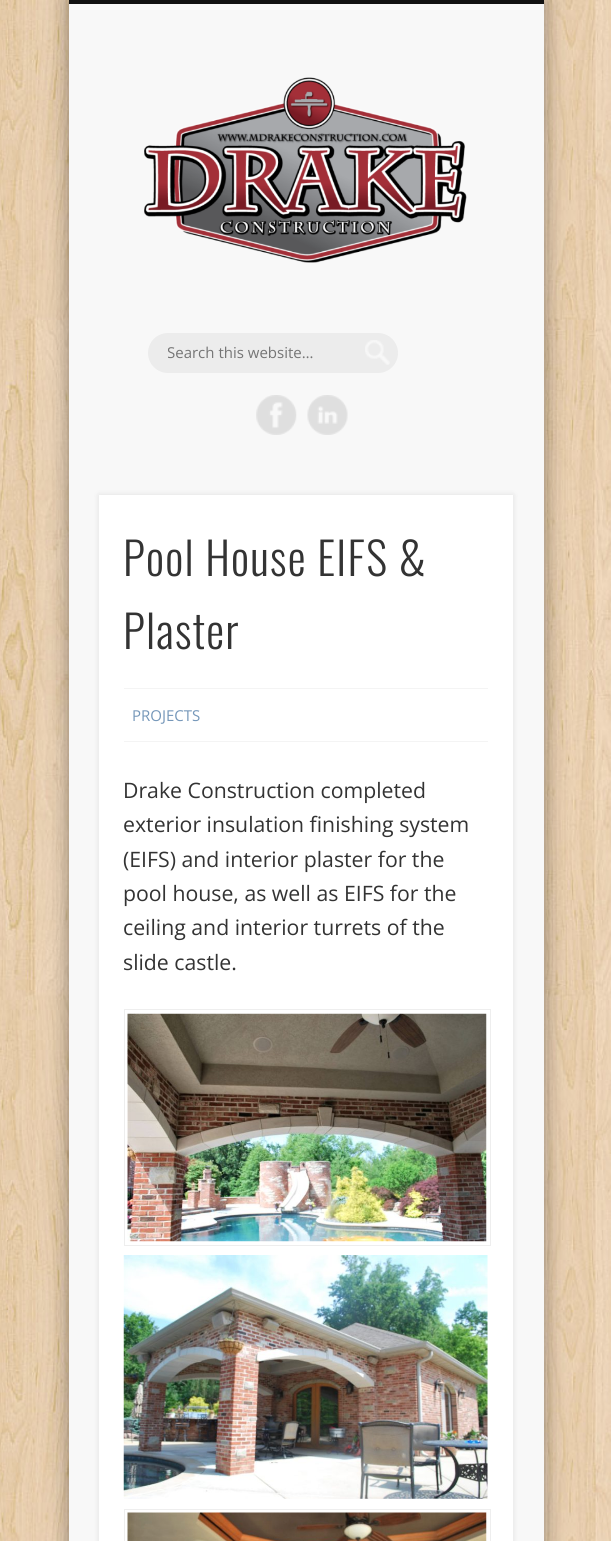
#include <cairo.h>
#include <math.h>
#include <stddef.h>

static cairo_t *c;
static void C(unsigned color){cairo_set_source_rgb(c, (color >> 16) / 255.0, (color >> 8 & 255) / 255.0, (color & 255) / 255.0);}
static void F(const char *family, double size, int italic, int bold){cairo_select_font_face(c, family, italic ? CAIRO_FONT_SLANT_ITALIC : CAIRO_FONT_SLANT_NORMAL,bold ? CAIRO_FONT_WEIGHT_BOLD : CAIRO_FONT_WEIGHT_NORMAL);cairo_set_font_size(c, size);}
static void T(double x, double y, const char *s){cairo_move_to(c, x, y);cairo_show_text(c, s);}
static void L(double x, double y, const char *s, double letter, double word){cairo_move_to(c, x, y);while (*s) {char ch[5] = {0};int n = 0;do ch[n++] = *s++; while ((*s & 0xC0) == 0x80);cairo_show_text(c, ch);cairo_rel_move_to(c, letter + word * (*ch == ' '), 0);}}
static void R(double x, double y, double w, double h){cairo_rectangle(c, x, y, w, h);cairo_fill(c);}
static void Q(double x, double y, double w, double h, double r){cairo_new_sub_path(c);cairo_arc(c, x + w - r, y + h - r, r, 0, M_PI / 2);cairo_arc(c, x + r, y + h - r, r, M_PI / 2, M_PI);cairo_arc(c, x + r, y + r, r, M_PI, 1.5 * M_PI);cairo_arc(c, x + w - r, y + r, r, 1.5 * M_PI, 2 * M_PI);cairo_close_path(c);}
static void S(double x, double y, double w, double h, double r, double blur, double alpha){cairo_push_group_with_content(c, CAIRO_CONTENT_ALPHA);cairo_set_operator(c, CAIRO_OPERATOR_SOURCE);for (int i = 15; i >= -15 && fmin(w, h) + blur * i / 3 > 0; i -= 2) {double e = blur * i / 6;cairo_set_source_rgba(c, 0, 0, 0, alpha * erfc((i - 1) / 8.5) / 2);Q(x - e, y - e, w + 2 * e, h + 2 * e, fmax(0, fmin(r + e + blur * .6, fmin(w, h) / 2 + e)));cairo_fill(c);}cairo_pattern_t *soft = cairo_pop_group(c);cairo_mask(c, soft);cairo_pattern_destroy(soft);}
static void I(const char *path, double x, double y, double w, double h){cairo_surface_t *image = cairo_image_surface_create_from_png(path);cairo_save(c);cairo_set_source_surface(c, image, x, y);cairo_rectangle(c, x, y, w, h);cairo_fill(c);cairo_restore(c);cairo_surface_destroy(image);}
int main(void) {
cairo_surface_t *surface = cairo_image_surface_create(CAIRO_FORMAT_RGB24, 611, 1541);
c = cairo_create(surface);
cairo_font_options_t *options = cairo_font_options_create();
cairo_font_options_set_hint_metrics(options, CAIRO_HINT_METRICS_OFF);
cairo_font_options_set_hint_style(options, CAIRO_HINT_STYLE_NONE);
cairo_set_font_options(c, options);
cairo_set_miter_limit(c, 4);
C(0xffffff);
cairo_paint(c);
I("1.png",0,0,611,1541);
C(0x000000);
S(69,0,475,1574,0,11,.4);
C(0xf8f8f8);
R(69,4,475,1537);
C(0x111111);
R(69,0,475,4);
I("2.png",144,77,323,186);
C(0xececec);
Q(148,333,250,40,20);
cairo_fill(c);
I("3.png",365,340,25,25);
cairo_save(c);
cairo_rectangle(c,168,341,210,22);
cairo_clip(c);
F("Open Sans",15,0,0);
C(0x757575);
T(167,358,"Search this website…");
cairo_restore(c);
I("4.png",256,395,41,40);
I("5.png",307,395,41,40);
C(0x000000);
S(99,495,414,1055,0,3,.1);
C(0xffffff);
R(99,495,414,1046);
F("Oswald Light",45,0,0);
C(0x333333);
L(123,576,"Pool House EIFS &",1.25,0);
L(123,649,"Plaster",1.25,0);
C(0xf4f4f4);
R(124,688,364,1);
R(124,741,364,1);
F("Open Sans",15,0,0);
C(0x7597b9);
T(132,721,"PROJECTS");
F("Open Sans",21.25,0,0);
C(0x333333);
T(123,798,"Drake Construction completed");
T(123,832,"exterior insulation finishing system");
T(123,867,"(EIFS) and interior plaster for the");
T(123,901,"pool house, as well as EIFS for the");
T(123,935,"ceiling and interior turrets of the");
T(123,970,"slide castle.");
cairo_rectangle(c,124.5,1009.5,366,236);
C(0xeeeeee);
cairo_set_line_width(c,1);
cairo_stroke(c);
I("6.png",127,1013,360,229);
I("7.png",123,1255,365,244);
cairo_rectangle(c,124.5,1509.5,366,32);
cairo_stroke(c);
I("8.png",127,1512,360,29);
cairo_surface_write_to_png(surface, "o.png");
cairo_font_options_destroy(options);
cairo_destroy(c);
cairo_surface_destroy(surface);
return 0;
}
